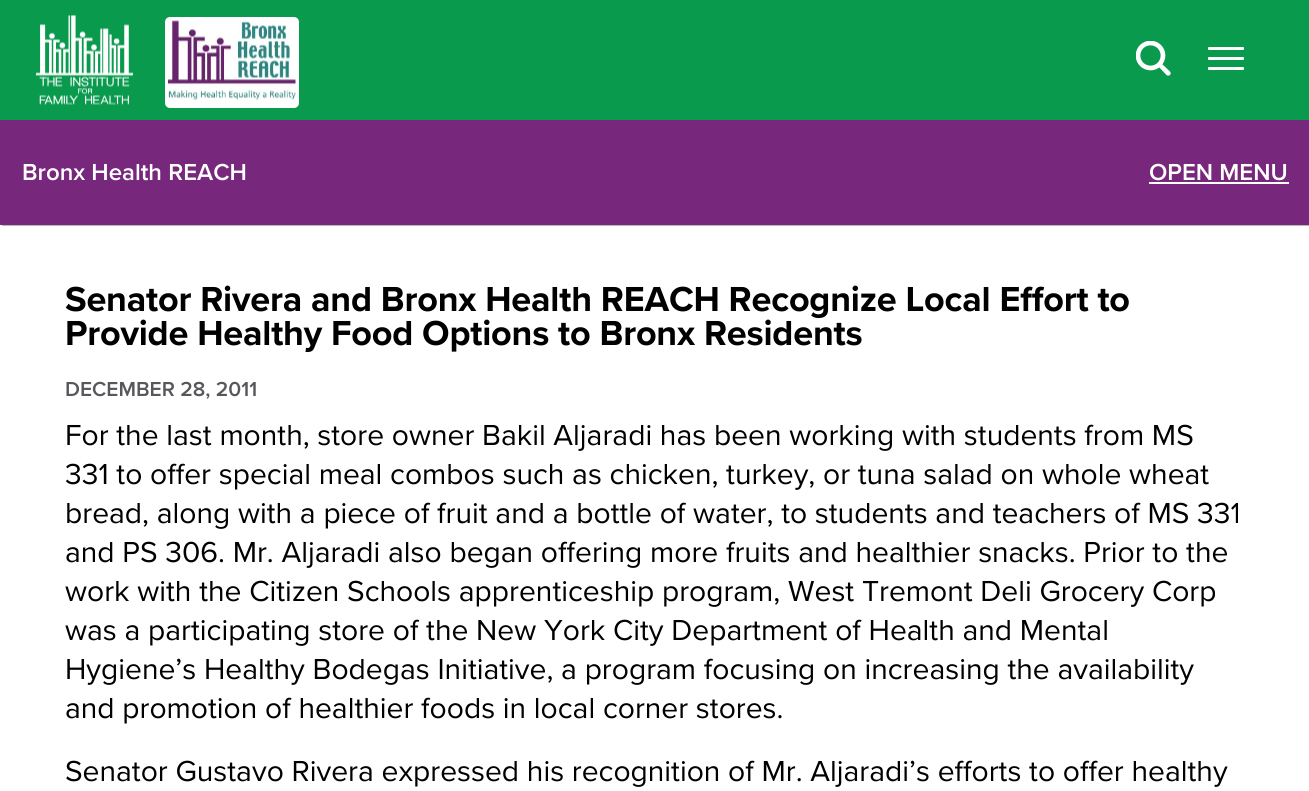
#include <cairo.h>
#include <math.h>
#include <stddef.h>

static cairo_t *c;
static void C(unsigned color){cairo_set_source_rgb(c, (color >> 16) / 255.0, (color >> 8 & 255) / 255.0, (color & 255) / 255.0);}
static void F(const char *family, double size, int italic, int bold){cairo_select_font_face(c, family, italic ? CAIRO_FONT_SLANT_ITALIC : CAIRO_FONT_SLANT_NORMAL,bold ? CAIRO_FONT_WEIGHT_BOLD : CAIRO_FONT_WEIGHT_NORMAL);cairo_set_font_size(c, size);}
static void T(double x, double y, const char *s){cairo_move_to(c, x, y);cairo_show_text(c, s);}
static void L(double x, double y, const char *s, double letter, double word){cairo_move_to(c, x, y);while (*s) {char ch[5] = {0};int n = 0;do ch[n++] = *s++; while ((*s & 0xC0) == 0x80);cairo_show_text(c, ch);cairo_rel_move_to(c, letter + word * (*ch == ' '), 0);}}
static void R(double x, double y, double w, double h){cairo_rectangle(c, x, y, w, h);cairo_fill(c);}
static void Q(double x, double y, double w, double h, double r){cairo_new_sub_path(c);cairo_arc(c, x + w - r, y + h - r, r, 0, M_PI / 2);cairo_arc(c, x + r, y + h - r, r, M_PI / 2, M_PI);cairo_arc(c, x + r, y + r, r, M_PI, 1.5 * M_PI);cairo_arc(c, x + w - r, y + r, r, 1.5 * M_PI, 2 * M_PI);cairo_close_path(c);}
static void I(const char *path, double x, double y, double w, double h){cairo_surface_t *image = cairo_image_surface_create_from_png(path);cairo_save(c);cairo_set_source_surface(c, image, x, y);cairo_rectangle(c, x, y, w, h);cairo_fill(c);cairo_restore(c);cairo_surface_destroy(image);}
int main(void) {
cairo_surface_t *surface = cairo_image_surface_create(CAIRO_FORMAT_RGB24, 1309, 791);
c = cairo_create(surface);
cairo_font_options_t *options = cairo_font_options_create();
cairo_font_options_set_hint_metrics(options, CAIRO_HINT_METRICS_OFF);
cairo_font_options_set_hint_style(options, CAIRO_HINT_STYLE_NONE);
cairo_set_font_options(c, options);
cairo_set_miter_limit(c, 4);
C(0xffffff);
cairo_paint(c);
C(0x0a9a4e);
R(0,0,1309,120);
I("1.png",36,15,97,90);
cairo_save(c);
cairo_rectangle(c,1136,41,36,36);
cairo_clip(c);
cairo_arc(c,1150.5,55.5,12.5,0,2 * M_PI);
C(0xffffff);
cairo_set_line_width(c,4.7);
cairo_stroke(c);
cairo_restore(c);
C(0xffffff);
cairo_new_path(c);
cairo_move_to(c,1166.5,75);
cairo_curve_to(c,1169,77,1172,74,1170,71.5);
cairo_close_path(c);
cairo_move_to(c,1157.5,65.5);
cairo_line_to(c,1166.5,75);
cairo_line_to(c,1170,71.5);
cairo_line_to(c,1160.5,62.5);
cairo_close_path(c);
cairo_fill(c);
Q(1208,47,36,3,1);
cairo_fill(c);
Q(1208,57,36,3,1);
cairo_fill(c);
Q(1208,67,36,3,1);
cairo_fill(c);
Q(165,17,134,91,5);
cairo_fill(c);
I("2.png",168,20,128,80);
C(0x77277c);
R(0,120,1309,105);
F("Proxima Nova SemiBold",24,0,0);
C(0xffffff);
T(22,180,"Bronx Health REACH");
T(1149,180,"OPEN MENU");
R(1149,182,140,2);
C(0xb8b8b5);
R(2,225,1307,1);
F("Proxima Nova",36,0,1);
C(0x000000);
L(65,311,"Senator Rivera and Bronx Health REACH Recognize Local Effort to",-.22,0);
L(65,345,"Provide Healthy Food Options to Bronx Residents",-.22,0);
F("Proxima Nova SemiBold",21,0,0);
C(0x57585b);
T(65,396,"DECEMBER 28, 2011");
F("Proxima Nova",30,0,0);
C(0x000000);
T(65,445,"For the last month, store owner Bakil Aljaradi has been working with students from MS");
T(65,484,"331 to offer special meal combos such as chicken, turkey, or tuna salad on whole wheat");
T(65,523,"bread, along with a piece of fruit and a bottle of water, to students and teachers of MS 331");
T(65,562,"and PS 306. Mr. Aljaradi also began offering more fruits and healthier snacks. Prior to the");
T(65,601,"work with the Citizen Schools apprenticeship program, West Tremont Deli Grocery Corp");
T(65,640,"was a participating store of the New York City Department of Health and Mental");
T(65,679,"Hygiene’s Healthy Bodegas Initiative, a program focusing on increasing the availability");
T(65,718,"and promotion of healthier foods in local corner stores.");
T(65,781,"Senator Gustavo Rivera expressed his recognition of Mr. Aljaradi’s efforts to offer healthy");
cairo_surface_write_to_png(surface, "o.png");
cairo_font_options_destroy(options);
cairo_destroy(c);
cairo_surface_destroy(surface);
return 0;
}
